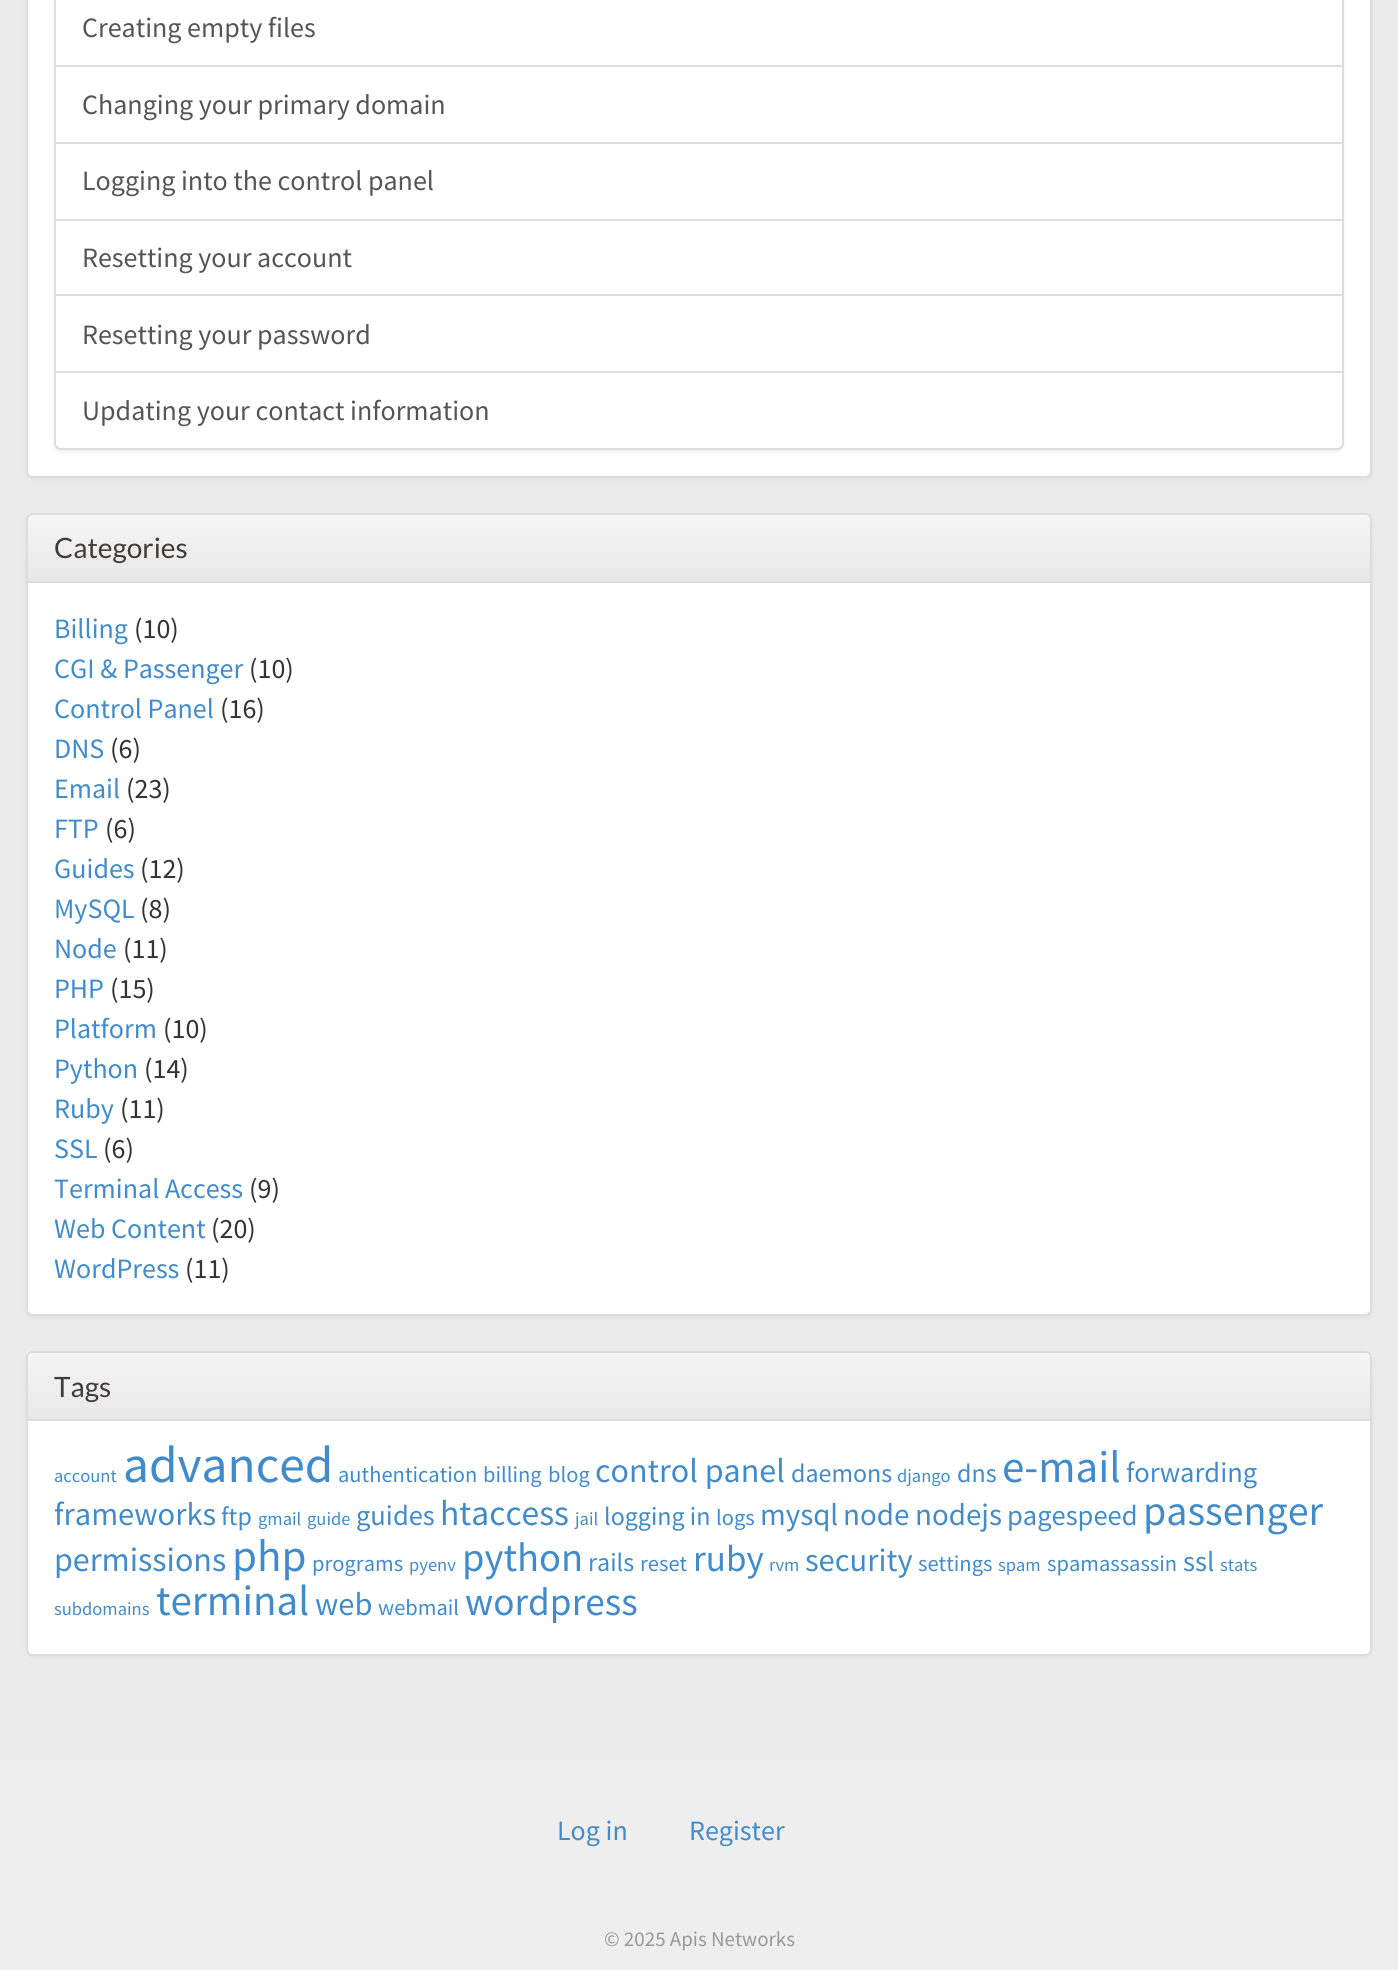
#include <cairo.h>
#include <math.h>
#include <stddef.h>

static cairo_t *c;
static void C(unsigned color){cairo_set_source_rgb(c, (color >> 16) / 255.0, (color >> 8 & 255) / 255.0, (color & 255) / 255.0);}
static void F(const char *family, double size, int italic, int bold){cairo_select_font_face(c, family, italic ? CAIRO_FONT_SLANT_ITALIC : CAIRO_FONT_SLANT_NORMAL,bold ? CAIRO_FONT_WEIGHT_BOLD : CAIRO_FONT_WEIGHT_NORMAL);cairo_set_font_size(c, size);}
static void T(double x, double y, const char *s){cairo_move_to(c, x, y);cairo_show_text(c, s);}
static void R(double x, double y, double w, double h){cairo_rectangle(c, x, y, w, h);cairo_fill(c);}
static void Q(double x, double y, double w, double h, double r){cairo_new_sub_path(c);cairo_arc(c, x + w - r, y + h - r, r, 0, M_PI / 2);cairo_arc(c, x + r, y + h - r, r, M_PI / 2, M_PI);cairo_arc(c, x + r, y + r, r, M_PI, 1.5 * M_PI);cairo_arc(c, x + w - r, y + r, r, 1.5 * M_PI, 2 * M_PI);cairo_close_path(c);}
static void S(double x, double y, double w, double h, double r, double blur, double alpha){cairo_push_group_with_content(c, CAIRO_CONTENT_ALPHA);cairo_set_operator(c, CAIRO_OPERATOR_SOURCE);for (int i = 15; i >= -15 && fmin(w, h) + blur * i / 3 > 0; i -= 2) {double e = blur * i / 6;cairo_set_source_rgba(c, 0, 0, 0, alpha * erfc((i - 1) / 8.5) / 2);Q(x - e, y - e, w + 2 * e, h + 2 * e, fmax(0, fmin(r + e + blur * .6, fmin(w, h) / 2 + e)));cairo_fill(c);}cairo_pattern_t *soft = cairo_pop_group(c);cairo_mask(c, soft);cairo_pattern_destroy(soft);}
int main(void) {
cairo_surface_t *surface = cairo_image_surface_create(CAIRO_FORMAT_RGB24, 1398, 1970);
c = cairo_create(surface);
cairo_font_options_t *options = cairo_font_options_create();
cairo_font_options_set_hint_metrics(options, CAIRO_HINT_METRICS_OFF);
cairo_font_options_set_hint_style(options, CAIRO_HINT_STYLE_NONE);
cairo_set_font_options(c, options);
cairo_set_miter_limit(c, 4);
cairo_pattern_t *gradient;
C(0xebebeb);
cairo_paint(c);
C(0x000000);
S(26,-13,1346,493,7,2,.05);
C(0xffffff);
Q(27,-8,1344,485,6);
cairo_fill_preserve(c);
C(0xdddddd);
cairo_stroke(c);
C(0x000000);
S(54,-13,1290,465,7,2,.07);
C(0xffffff);
cairo_rectangle(c,55,-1,1288,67);
cairo_fill_preserve(c);
C(0xdddddd);
cairo_stroke(c);
F("Source Sans Pro",28,0,0);
C(0x555555);
T(82,37,"Creating empty files");
C(0xffffff);
cairo_rectangle(c,55,66,1288,77);
cairo_fill_preserve(c);
C(0xdddddd);
cairo_stroke(c);
C(0x555555);
T(82,114,"Changing your primary domain");
C(0xffffff);
cairo_rectangle(c,55,143,1288,77);
cairo_fill_preserve(c);
C(0xdddddd);
cairo_stroke(c);
C(0x555555);
T(82,190,"Logging into the control panel");
C(0xffffff);
cairo_rectangle(c,55,220,1288,75);
cairo_fill_preserve(c);
C(0xdddddd);
cairo_stroke(c);
C(0x555555);
T(82,267,"Resetting your account");
C(0xffffff);
cairo_rectangle(c,55,295,1288,77);
cairo_fill_preserve(c);
C(0xdddddd);
cairo_stroke(c);
C(0x555555);
T(82,344,"Resetting your password");
C(0xffffff);
cairo_new_path(c);
cairo_move_to(c,55,372);
cairo_line_to(c,1343,372);
cairo_line_to(c,1343,443);
cairo_curve_to(c,1343,446.5,1340.5,449,1337,449);
cairo_line_to(c,61,449);
cairo_curve_to(c,57.5,449,55,446.5,55,443);
cairo_close_path(c);
cairo_fill_preserve(c);
C(0xdddddd);
cairo_stroke(c);
C(0x555555);
T(82,420,"Updating your contact information");
C(0x000000);
S(26,515,1346,803,7,2,.05);
C(0xffffff);
Q(27,514,1344,801,6);
cairo_fill_preserve(c);
C(0xdddddd);
cairo_stroke(c);
gradient = cairo_pattern_create_linear(699,514,699,581);
cairo_pattern_add_color_stop_rgba(gradient,0,0.961,0.961,0.961,1);
cairo_pattern_add_color_stop_rgba(gradient,1,0.91,0.91,0.91,1);
cairo_set_source(c,gradient);
cairo_pattern_destroy(gradient);
cairo_new_path(c);
cairo_move_to(c,33,515);
cairo_line_to(c,1365,515);
cairo_curve_to(c,1368,515,1370,517,1370,520);
cairo_line_to(c,1370,581);
cairo_line_to(c,28,581);
cairo_line_to(c,28,520);
cairo_curve_to(c,28,517,30,515,33,515);
cairo_close_path(c);
cairo_fill(c);
C(0xdddddd);
R(28,581,1342,2);
F("Lato",28,0,0);
C(0x3f3b38);
T(54,558,"Categories");
F("Source Sans Pro",28,0,0);
C(0x428bca);
T(54,638,"Billing");
C(0x333333);
T(134,638,"(10)");
C(0x428bca);
T(54,678,"CGI & Passenger");
C(0x333333);
T(249,678,"(10)");
C(0x428bca);
T(54,718,"Control Panel");
C(0x333333);
T(220,718,"(16)");
C(0x428bca);
T(54,758,"DNS");
C(0x333333);
T(110,758,"(6)");
C(0x428bca);
T(54,798,"Email");
C(0x333333);
T(126,798,"(23)");
C(0x428bca);
T(54,838,"FTP");
C(0x333333);
T(105,838,"(6)");
C(0x428bca);
T(54,878,"Guides");
C(0x333333);
T(140,878,"(12)");
C(0x428bca);
T(54,918,"MySQL");
C(0x333333);
T(140,918,"(8)");
C(0x428bca);
T(54,958,"Node");
C(0x333333);
T(123,958,"(11)");
C(0x428bca);
T(54,998,"PHP");
C(0x333333);
T(110,998,"(15)");
C(0x428bca);
T(54,1038,"Platform");
C(0x333333);
T(163,1038,"(10)");
C(0x428bca);
T(54,1078,"Python");
C(0x333333);
T(144,1078,"(14)");
C(0x428bca);
T(54,1118,"Ruby");
C(0x333333);
T(120,1118,"(11)");
C(0x428bca);
T(54,1158,"SSL");
C(0x333333);
T(103,1158,"(6)");
C(0x428bca);
T(54,1198,"Terminal Access");
C(0x333333);
T(249,1198,"(9)");
C(0x428bca);
T(54,1238,"Web Content");
C(0x333333);
T(211,1238,"(20)");
C(0x428bca);
T(54,1278,"WordPress");
C(0x333333);
T(185,1278,"(11)");
C(0x000000);
S(26,1353,1346,304,7,2,.05);
C(0xffffff);
Q(27,1352,1344,303,6);
cairo_fill_preserve(c);
C(0xdddddd);
cairo_stroke(c);
gradient = cairo_pattern_create_linear(699,1353,699,1419);
cairo_pattern_add_color_stop_rgba(gradient,0,0.961,0.961,0.961,1);
cairo_pattern_add_color_stop_rgba(gradient,1,0.91,0.91,0.91,1);
cairo_set_source(c,gradient);
cairo_pattern_destroy(gradient);
cairo_new_path(c);
cairo_move_to(c,33,1353);
cairo_line_to(c,1365,1353);
cairo_curve_to(c,1368,1353,1370,1355,1370,1358);
cairo_line_to(c,1370,1419);
cairo_line_to(c,28,1419);
cairo_line_to(c,28,1358);
cairo_curve_to(c,28,1355,30,1353,33,1353);
cairo_close_path(c);
cairo_fill(c);
C(0xdddddd);
R(28,1419,1342,2);
F("Lato",28,0,0);
C(0x3f3b38);
T(54,1397,"Tags");
F("Source Sans Pro",18.5,0,0);
C(0x428bca);
T(54,1482,"account");
F("Source Sans Pro",51.5,0,0);
T(123,1482,"advanced");
F("Source Sans Pro",22.5,0,0);
T(338,1482,"authentication");
T(483,1482,"billing");
T(548,1482,"blog");
F("Source Sans Pro",34,0,0);
T(595,1482,"control panel");
F("Source Sans Pro",26,0,0);
T(791,1482,"daemons");
F("Source Sans Pro",18.5,0,0);
T(897,1482,"django");
F("Source Sans Pro",26,0,0);
T(957,1482,"dns");
F("Source Sans Pro",45,0,0);
T(1002,1482,"e-mail");
F("Source Sans Pro",28.5,0,0);
T(1126,1482,"forwarding");
F("Source Sans Pro",32.5,0,0);
T(54,1525,"frameworks");
F("Source Sans Pro",26,0,0);
T(221,1525,"ftp");
F("Source Sans Pro",18.5,0,0);
T(258,1525,"gmail");
T(307,1525,"guide");
F("Source Sans Pro",28.5,0,0);
T(356,1525,"guides");
F("Source Sans Pro",35.5,0,0);
T(440,1525,"htaccess");
F("Source Sans Pro",18.5,0,0);
T(575,1525,"jail");
F("Source Sans Pro",26,0,0);
T(604,1525,"logging in");
F("Source Sans Pro",22.5,0,0);
T(716,1525,"logs");
F("Source Sans Pro",31,0,0);
T(760,1525,"mysql");
T(843,1525,"node");
T(915,1525,"nodejs");
F("Source Sans Pro",28.5,0,0);
T(1007,1525,"pagespeed");
F("Source Sans Pro",42,0,0);
T(1143,1525,"passenger");
F("Source Sans Pro",34,0,0);
T(54,1571,"permissions");
F("Source Sans Pro",45,0,0);
T(232,1571,"php");
F("Source Sans Pro",22.5,0,0);
T(312,1571,"programs");
F("Source Sans Pro",18.5,0,0);
T(409,1571,"pyenv");
F("Source Sans Pro",40.5,0,0);
T(462,1571,"python");
F("Source Sans Pro",26,0,0);
T(588,1571,"rails");
F("Source Sans Pro",22.5,0,0);
T(640,1571,"reset");
F("Source Sans Pro",37,0,0);
T(693,1571,"ruby");
F("Source Sans Pro",18.5,0,0);
T(769,1571,"rvm");
F("Source Sans Pro",32.5,0,0);
T(805,1571,"security");
F("Source Sans Pro",22.5,0,0);
T(918,1571,"settings");
F("Source Sans Pro",18.5,0,0);
T(998,1571,"spam");
F("Source Sans Pro",22.5,0,0);
T(1047,1571,"spamassassin");
F("Source Sans Pro",28.5,0,0);
T(1183,1571,"ssl");
F("Source Sans Pro",18.5,0,0);
T(1220,1571,"stats");
T(54,1615,"subdomains");
F("Source Sans Pro",43,0,0);
T(156,1615,"terminal");
F("Source Sans Pro",32.5,0,0);
T(315,1615,"web");
F("Source Sans Pro",22.5,0,0);
T(378,1615,"webmail");
F("Source Sans Pro",39.25,0,0);
T(465,1615,"wordpress");
C(0xeeeeee);
R(0,1761,1398,209);
F("Source Sans Pro",28,0,0);
C(0x428bca);
T(557,1840,"Log in");
T(689,1840,"Register");
F("Source Sans Pro",21,0,0);
C(0x999999);
T(604,1946,"© 2025 Apis Networks");
cairo_surface_write_to_png(surface, "o.png");
cairo_font_options_destroy(options);
cairo_destroy(c);
cairo_surface_destroy(surface);
return 0;
}
